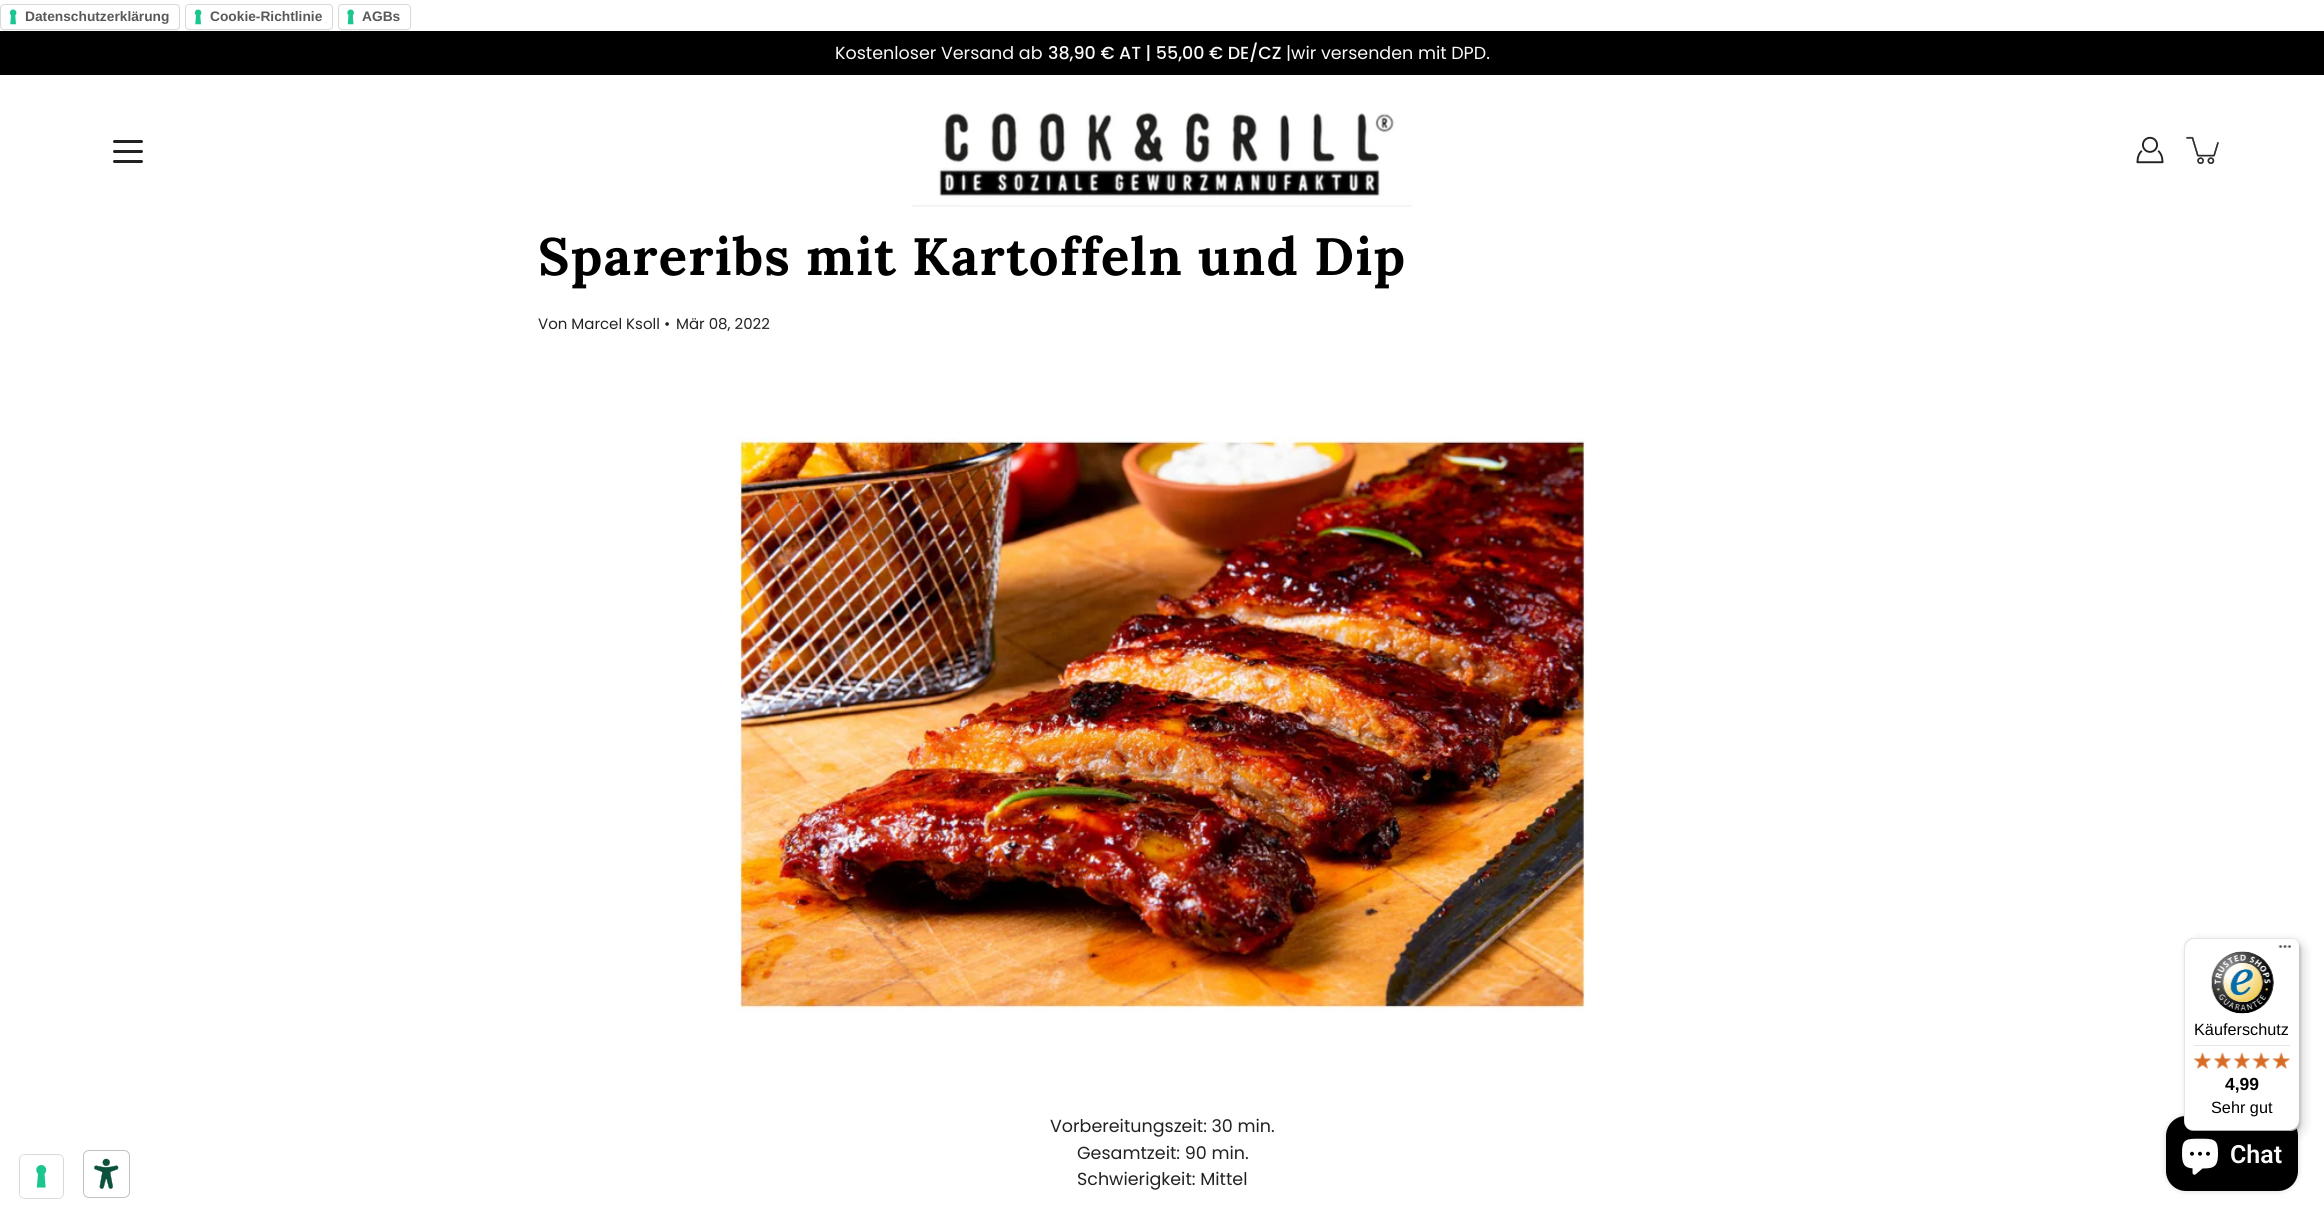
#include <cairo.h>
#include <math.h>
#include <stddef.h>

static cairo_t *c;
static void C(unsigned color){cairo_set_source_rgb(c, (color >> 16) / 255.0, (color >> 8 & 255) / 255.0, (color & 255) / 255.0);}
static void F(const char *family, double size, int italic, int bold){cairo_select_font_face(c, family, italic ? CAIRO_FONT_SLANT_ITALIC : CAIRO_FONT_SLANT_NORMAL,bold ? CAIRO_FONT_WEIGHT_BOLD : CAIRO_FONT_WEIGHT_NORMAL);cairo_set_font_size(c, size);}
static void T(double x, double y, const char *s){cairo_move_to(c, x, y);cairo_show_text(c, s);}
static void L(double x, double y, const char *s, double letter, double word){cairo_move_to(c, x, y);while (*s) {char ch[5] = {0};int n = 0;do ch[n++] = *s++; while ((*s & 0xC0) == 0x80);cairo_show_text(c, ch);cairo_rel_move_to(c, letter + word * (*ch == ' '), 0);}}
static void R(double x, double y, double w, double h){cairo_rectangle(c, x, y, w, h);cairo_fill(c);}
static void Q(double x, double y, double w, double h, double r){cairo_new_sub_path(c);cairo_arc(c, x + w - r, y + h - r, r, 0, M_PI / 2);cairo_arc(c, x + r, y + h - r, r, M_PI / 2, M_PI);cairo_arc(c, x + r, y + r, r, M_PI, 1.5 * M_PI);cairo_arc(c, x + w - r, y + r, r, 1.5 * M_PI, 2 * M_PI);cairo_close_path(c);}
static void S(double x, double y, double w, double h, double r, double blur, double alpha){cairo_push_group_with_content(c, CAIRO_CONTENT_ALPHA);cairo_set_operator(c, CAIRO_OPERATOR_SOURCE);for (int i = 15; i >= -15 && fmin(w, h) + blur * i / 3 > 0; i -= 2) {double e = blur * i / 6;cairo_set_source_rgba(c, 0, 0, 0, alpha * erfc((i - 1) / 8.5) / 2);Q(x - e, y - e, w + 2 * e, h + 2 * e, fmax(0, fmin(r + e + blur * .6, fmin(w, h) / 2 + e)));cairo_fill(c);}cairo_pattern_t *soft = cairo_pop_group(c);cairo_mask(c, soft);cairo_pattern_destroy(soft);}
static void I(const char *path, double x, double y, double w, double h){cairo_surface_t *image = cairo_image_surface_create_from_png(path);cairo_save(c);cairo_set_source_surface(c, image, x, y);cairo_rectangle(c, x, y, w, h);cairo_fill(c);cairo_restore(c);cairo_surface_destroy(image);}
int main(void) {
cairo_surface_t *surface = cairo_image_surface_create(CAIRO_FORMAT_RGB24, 2324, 1217);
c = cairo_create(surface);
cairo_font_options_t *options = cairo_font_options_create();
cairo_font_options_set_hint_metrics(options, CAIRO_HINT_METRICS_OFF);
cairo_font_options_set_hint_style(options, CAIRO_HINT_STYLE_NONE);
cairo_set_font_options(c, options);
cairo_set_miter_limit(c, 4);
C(0xffffff);
cairo_paint(c);
C(0x000000);
S(1,6,178,24,2.5,.5,.15);
C(0xffffff);
Q(0,4,180,26,4);
cairo_fill(c);
I("1.png",9,9,8,16);
Q(.5,4.5,179,25,3.5);
C(0xd9d9d9);
cairo_set_line_width(c,1);
cairo_stroke(c);
F("Liberation Sans",13.75,0,1);
C(0x595959);
T(25,21,"Datenschutzerklärung");
C(0x000000);
S(186,6,145,24,2.5,.5,.15);
C(0xffffff);
Q(185,4,148,26,4);
cairo_fill(c);
I("1.png",194,9,8,16);
Q(185.5,4.5,147,25,3.5);
C(0xd9d9d9);
cairo_stroke(c);
C(0x595959);
T(210,21,"Cookie-Richtlinie");
C(0x000000);
S(339,6,71,24,2.5,.5,.15);
C(0xffffff);
Q(338,4,73,26,4);
cairo_fill(c);
I("2.png",347,9,7,16);
Q(338.5,4.5,72,25,3.5);
C(0xd9d9d9);
cairo_stroke(c);
C(0x595959);
T(362,21,"AGBs");
C(0x000000);
R(0,31,2324,44);
F("Poppins",17.5,0,0);
C(0xfafafa);
T(835,59,"Kostenloser Versand ab");
F("Poppins Medium",17.5,0,0);
T(1048,59,"38,90 € AT | 55,00 € DE/CZ");
F("Poppins",17.5,0,0);
T(1286,59,"|wir versenden mit DPD.");
I("3.png",912,112,501,95);
C(0x222222);
Q(113,150,30,3,1.5);
cairo_fill(c);
Q(113,140,30,3,1.5);
cairo_fill(c);
Q(113,160,30,3,1.5);
cairo_fill(c);
I("4.png",2136,136,28,28);
I("5.png",2186,136,33,28);
F("Lora",52.5,0,1);
C(0x000000);
L(538,275,"Spareribs mit Kartoffeln und Dip",1.25,0);
F("Poppins",15,0,0);
C(0x222222);
T(538,329,"Von Marcel Ksoll");
T(664,329,"•");
T(676,329,"Mär 08, 2022");
I("6.png",732,437,855,575);
F("Poppins",17.5,0,0);
T(1050,1132,"Vorbereitungszeit: 30 min.");
T(1077,1159,"Gesamtzeit: 90 min.");
T(1077,1185,"Schwierigkeit: Mittel");
C(0x000000);
S(2166,1116,132,75,20,3,.15);
C(0x000000);
Q(2166,1116,132,75,20);
cairo_fill(c);
I("21.png",2182,1138,36,37);
C(0x000000);
S(2188,941,116,194,10,5,.15);
S(2185,939,116,194,10,1,.15);
C(0xffffff);
Q(2184,938,116,193,10);
cairo_fill(c);
cairo_set_source_rgba(c,0,0,0,0.1);
cairo_new_path(c);
cairo_move_to(c,2195,939);
cairo_line_to(c,2291,939);
cairo_curve_to(c,2293,939,2295,939,2296,940);
cairo_curve_to(c,2295,939,2292,938,2290,938);
cairo_line_to(c,2194,938);
cairo_curve_to(c,2188,938,2184,942,2184,948);
cairo_line_to(c,2184,1121);
cairo_curve_to(c,2184,1123,2185,1126,2186,1127);
cairo_curve_to(c,2185,1126,2185,1124,2185,1122);
cairo_line_to(c,2185,949);
cairo_curve_to(c,2185,943,2189,939,2195,939);
cairo_close_path(c);
cairo_fill(c);
cairo_set_source_rgba(c,0,0,0,0.2);
cairo_new_path(c);
cairo_move_to(c,2188,1129);
cairo_curve_to(c,2190,1130,2192,1131,2194,1131);
cairo_line_to(c,2290,1131);
cairo_curve_to(c,2296,1131,2300,1127,2300,1121);
cairo_line_to(c,2300,948);
cairo_curve_to(c,2300,946,2299,944,2298,942);
cairo_curve_to(c,2299,943,2299,945,2299,946);
cairo_line_to(c,2299,1120);
cairo_curve_to(c,2299,1126,2294,1130,2289,1130);
cairo_line_to(c,2192,1130);
cairo_close_path(c);
cairo_fill(c);
cairo_set_source_rgba(c,0.196,0.196,0.196,0.2);
cairo_new_path(c);
cairo_move_to(c,2188,1129);
cairo_curve_to(c,2189,1130,2192,1131,2194,1131);
cairo_line_to(c,2290,1131);
cairo_curve_to(c,2296,1131,2300,1127,2300,1121);
cairo_line_to(c,2300,948);
cairo_curve_to(c,2300,946,2299,943,2298,942);
cairo_curve_to(c,2299,943,2299,945,2299,947);
cairo_line_to(c,2299,1120);
cairo_curve_to(c,2299,1126,2295,1130,2289,1130);
cairo_line_to(c,2193,1130);
cairo_curve_to(c,2191,1130,2189,1130,2188,1129);
cairo_close_path(c);
cairo_fill(c);
cairo_set_source_rgba(c,1,1,1,0.3);
cairo_new_path(c);
cairo_move_to(c,2289,1131);
cairo_line_to(c,2290,1131);
cairo_curve_to(c,2296,1131,2300,1127,2300,1121);
cairo_line_to(c,2300,948);
cairo_curve_to(c,2300,946,2299,943,2298,942);
cairo_curve_to(c,2299,943,2299,945,2299,947);
cairo_line_to(c,2299,1121);
cairo_curve_to(c,2299,1126,2295,1131,2289,1131);
cairo_close_path(c);
cairo_fill(c);
I("7.png",2278,945,14,3);
I("8.png",2211,951,63,63);
F("Liberation Sans",16.25,0,0);
C(0x000000);
T(2194,1035,"Käuferschutz");
C(0xe5e5e5);
R(2194,1045,96,1);
I("14.png",2194,1053,17,16);
I("9.png",2193,1052,18,17);
I("15.png",2214,1053,17,16);
I("10.png",2213,1052,19,17);
I("16.png",2234,1053,16,16);
I("11.png",2233,1052,17,17);
I("17.png",2252,1052,18,17);
I("12.png",2252,1052,18,17);
I("18.png",2272,1053,18,16);
I("13.png",2272,1052,18,17);
F("Liberation Sans",17.5,0,1);
C(0x000000);
T(2225,1090,"4,99");
F("Liberation Sans",16.25,0,0);
T(2211,1113,"Sehr gut");
Q(19.5,1154.5,44,44,5.5);
C(0xd9d9d9);
cairo_stroke(c);
C(0xffffff);
Q(20,1155,43,43,5);
cairo_fill(c);
I("19.png",36,1165,11,23);
I("20.png",94,1158,25,31);
Q(83.5,1150.5,46,47,5.5);
C(0xc2c2c2);
cairo_stroke(c);
F("Roboto SemiBold",25,0,0);
C(0xfafafa);
T(2230,1163,"Chat");
cairo_surface_write_to_png(surface, "o.png");
cairo_font_options_destroy(options);
cairo_destroy(c);
cairo_surface_destroy(surface);
return 0;
}
